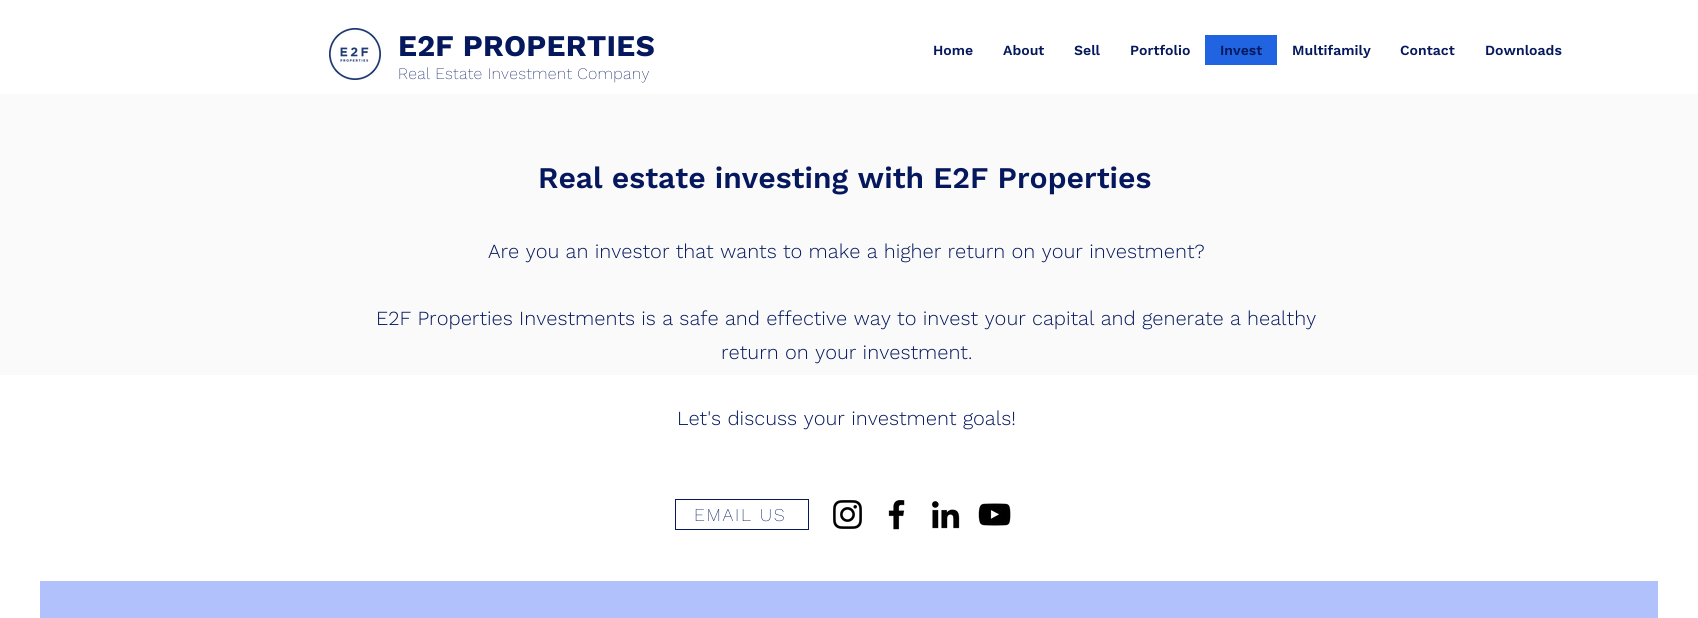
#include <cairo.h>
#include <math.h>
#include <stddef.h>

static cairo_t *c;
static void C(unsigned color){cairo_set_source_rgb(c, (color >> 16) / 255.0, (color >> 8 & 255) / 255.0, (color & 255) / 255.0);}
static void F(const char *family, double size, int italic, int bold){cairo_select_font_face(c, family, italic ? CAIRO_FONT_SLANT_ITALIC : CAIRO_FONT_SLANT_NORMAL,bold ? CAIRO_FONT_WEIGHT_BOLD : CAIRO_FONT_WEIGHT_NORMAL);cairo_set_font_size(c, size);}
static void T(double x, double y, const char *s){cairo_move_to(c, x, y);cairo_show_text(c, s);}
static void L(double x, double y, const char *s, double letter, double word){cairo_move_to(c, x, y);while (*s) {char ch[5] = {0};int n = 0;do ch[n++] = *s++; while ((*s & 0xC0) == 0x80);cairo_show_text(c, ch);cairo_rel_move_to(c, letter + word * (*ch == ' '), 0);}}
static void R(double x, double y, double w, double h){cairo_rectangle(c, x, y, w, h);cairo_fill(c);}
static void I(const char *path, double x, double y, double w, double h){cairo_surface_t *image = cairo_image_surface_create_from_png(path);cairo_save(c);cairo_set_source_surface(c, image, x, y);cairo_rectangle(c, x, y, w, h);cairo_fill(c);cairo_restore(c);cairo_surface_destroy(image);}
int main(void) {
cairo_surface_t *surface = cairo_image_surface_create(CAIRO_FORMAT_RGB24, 1698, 618);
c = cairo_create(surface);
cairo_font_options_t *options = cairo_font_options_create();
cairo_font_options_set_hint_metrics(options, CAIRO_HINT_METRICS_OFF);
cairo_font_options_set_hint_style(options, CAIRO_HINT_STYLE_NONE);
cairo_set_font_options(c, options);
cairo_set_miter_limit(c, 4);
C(0xffffff);
cairo_paint(c);
I("1.png",329,28,52,52);
F("Work Sans",30,0,1);
C(0x05185e);
L(398,56,"E2F PROPERTIES",.25,0);
F("Work Sans SemiBold",14,0,0);
T(933,55,"Home");
T(1003,55,"About");
T(1074,55,"Sell");
T(1130,55,"Portfolio");
C(0x2064e2);
R(1205,35,72,30);
C(0x05185e);
T(1220,55,"Invest");
T(1292,55,"Multifamily");
T(1400,55,"Contact");
T(1485,55,"Downloads");
F("Work Sans ExtraLight",16,0,0);
L(398,79,"Real Estate Investment Company",.3,0);
C(0xfafafa);
R(0,94,1698,281);
F("Work Sans SemiBold",30,0,0);
C(0x05185e);
T(538,188,"Real estate investing with E2F Properties");
F("Work Sans Light",20,0,0);
T(488,258,"Are you an investor that wants to make a higher return on your investment?");
T(376,325,"E2F Properties Investments is a safe and effective way to invest your capital and generate a healthy");
T(721,359,"return on your investment.");
T(677,425,"Let's discuss your investment goals!");
cairo_rectangle(c,675.5,499.5,133,30);
cairo_set_line_width(c,1);
cairo_stroke(c);
F("Work Sans ExtraLight",18,0,0);
L(694,521,"EMAIL US",1.75,0);
I("2.png",833,500,29,29);
I("3.png",888,500,17,30);
I("4.png",931,501,29,28);
I("5.png",978,503,33,23);
C(0xb1c1fb);
R(40,581,1618,37);
cairo_surface_write_to_png(surface, "o.png");
cairo_font_options_destroy(options);
cairo_destroy(c);
cairo_surface_destroy(surface);
return 0;
}
